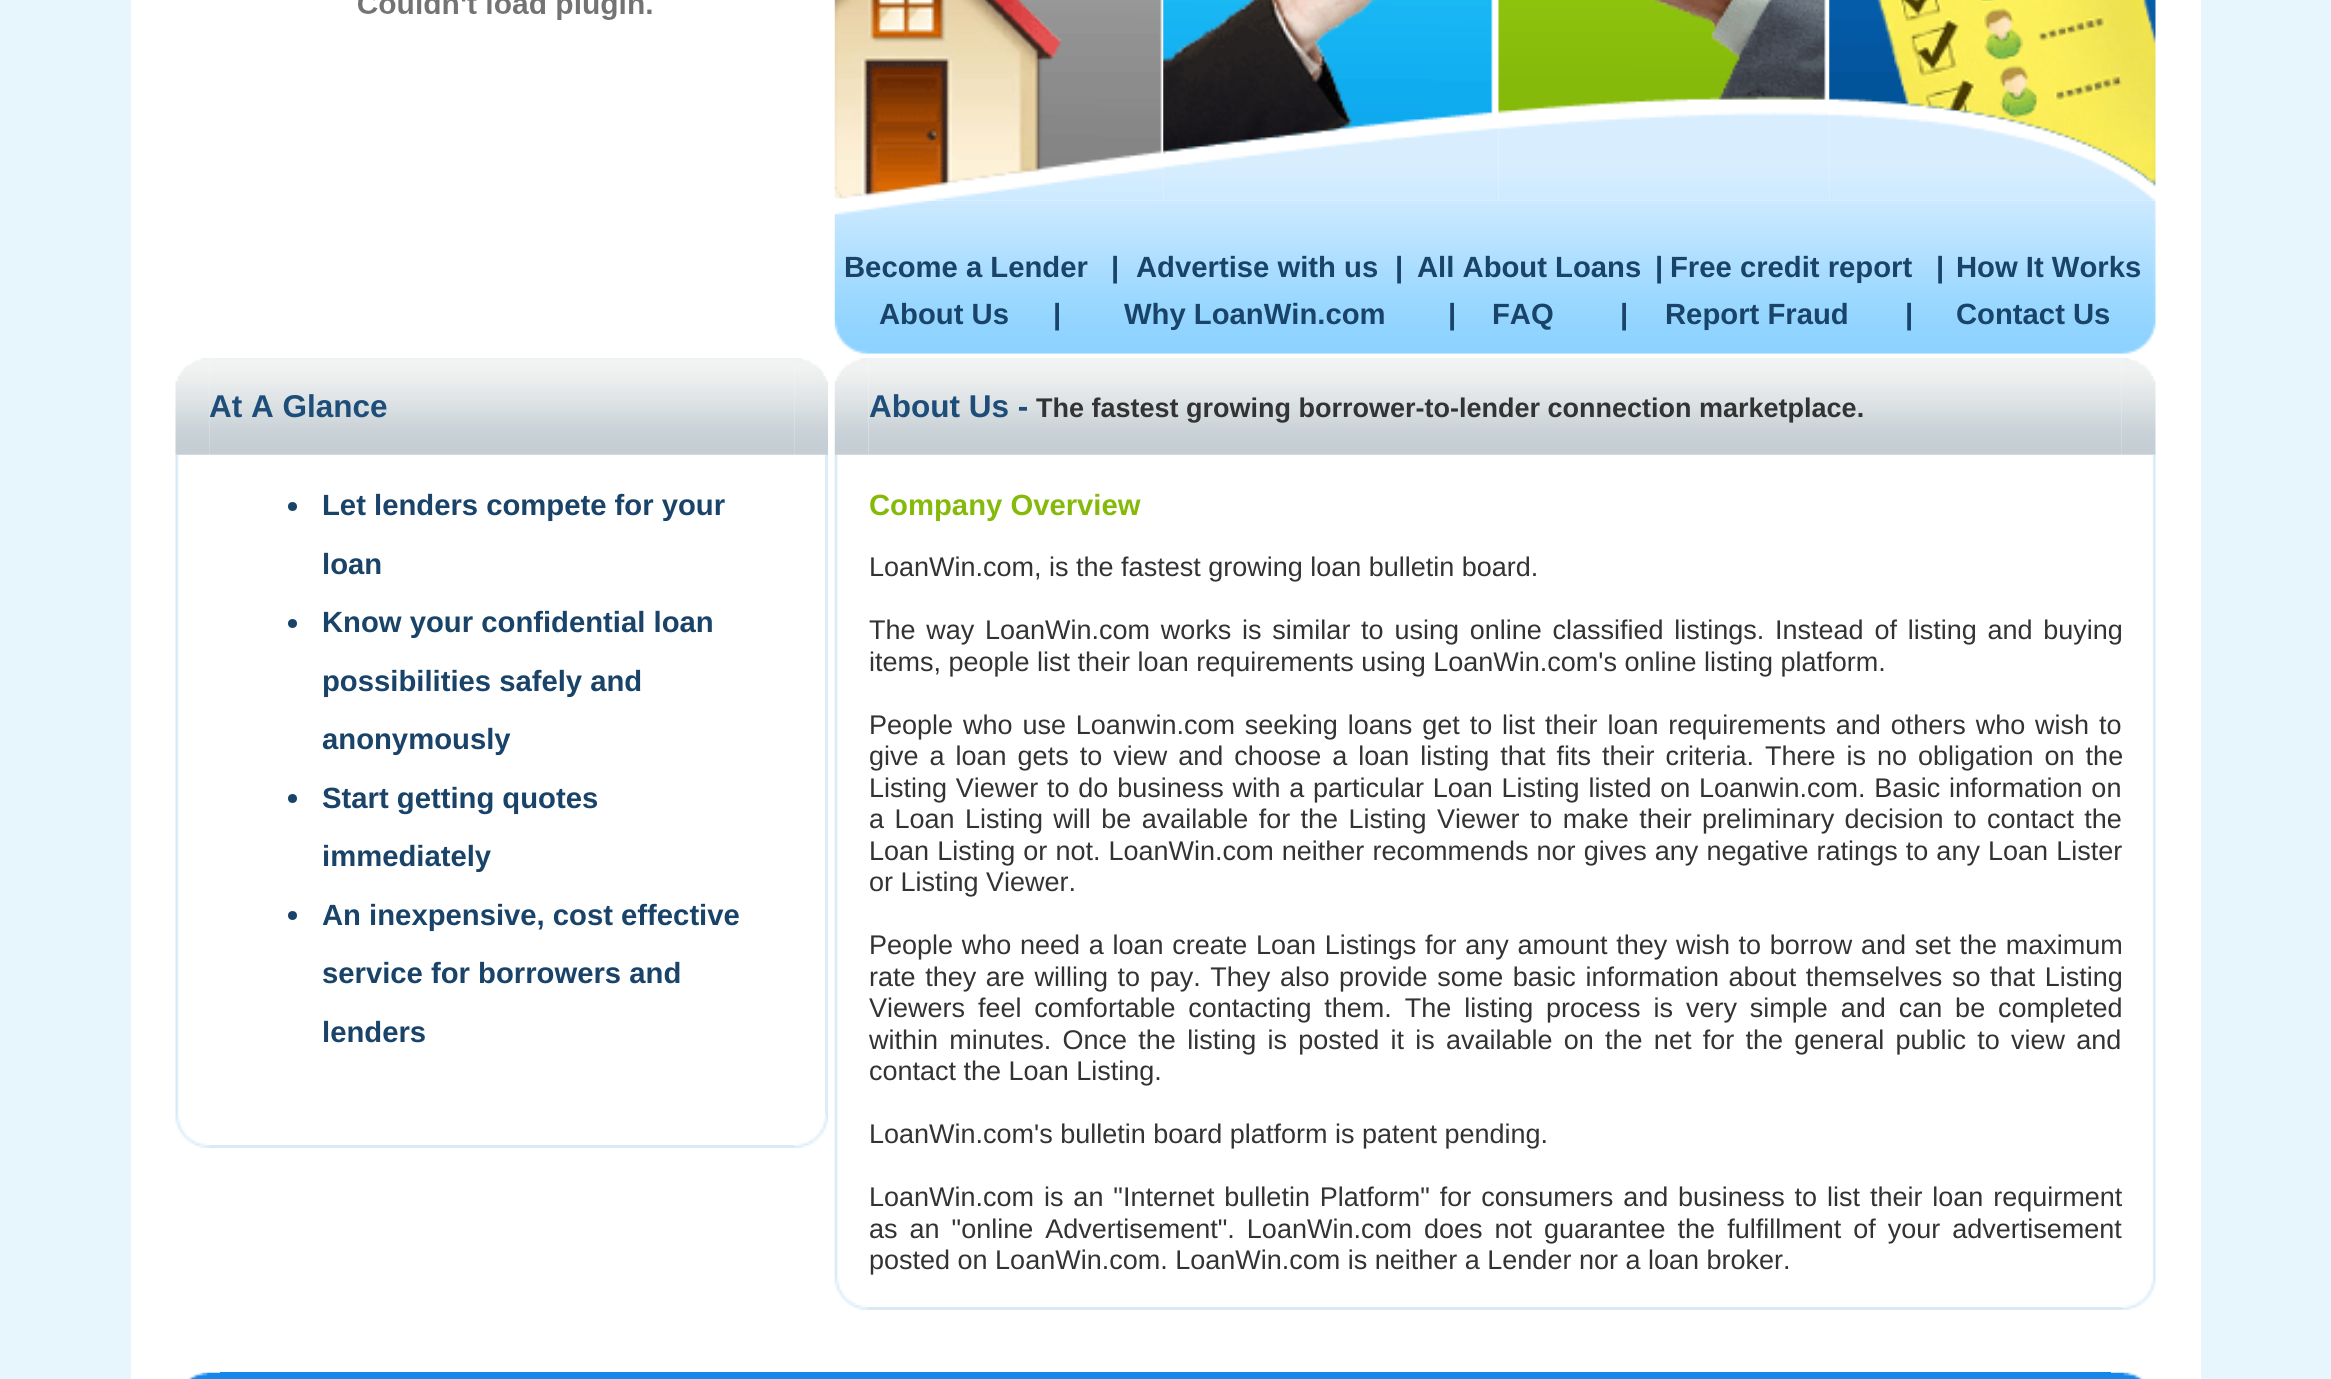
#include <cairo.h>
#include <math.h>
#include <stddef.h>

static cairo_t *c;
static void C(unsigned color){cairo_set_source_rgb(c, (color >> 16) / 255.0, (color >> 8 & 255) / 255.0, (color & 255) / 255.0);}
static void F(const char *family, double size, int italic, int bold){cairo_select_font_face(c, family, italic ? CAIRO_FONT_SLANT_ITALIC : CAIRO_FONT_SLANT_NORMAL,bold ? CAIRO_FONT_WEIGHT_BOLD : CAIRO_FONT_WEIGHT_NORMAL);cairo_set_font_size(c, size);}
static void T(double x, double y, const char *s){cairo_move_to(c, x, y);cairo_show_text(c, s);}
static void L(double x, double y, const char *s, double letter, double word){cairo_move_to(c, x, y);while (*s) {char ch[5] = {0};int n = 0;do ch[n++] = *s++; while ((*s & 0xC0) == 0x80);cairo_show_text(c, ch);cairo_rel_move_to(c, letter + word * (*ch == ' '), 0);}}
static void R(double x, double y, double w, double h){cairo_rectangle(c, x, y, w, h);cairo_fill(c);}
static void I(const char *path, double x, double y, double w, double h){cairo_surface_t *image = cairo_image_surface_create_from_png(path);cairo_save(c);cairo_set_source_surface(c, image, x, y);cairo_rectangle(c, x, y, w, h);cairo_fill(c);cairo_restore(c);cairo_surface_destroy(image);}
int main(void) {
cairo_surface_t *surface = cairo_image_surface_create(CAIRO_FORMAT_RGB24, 2331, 1379);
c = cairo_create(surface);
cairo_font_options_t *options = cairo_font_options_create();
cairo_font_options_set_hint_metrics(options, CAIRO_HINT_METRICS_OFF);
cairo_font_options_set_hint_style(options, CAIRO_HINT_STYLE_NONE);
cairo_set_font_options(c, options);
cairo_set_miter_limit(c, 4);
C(0xe7f6fd);
cairo_paint(c);
C(0xffffff);
R(131,0,2070,1379);
I("1.png",358,0,294,20);
I("6.png",834,200,1322,155);
I("2.png",834,0,330,201);
I("3.png",1163,0,336,201);
I("4.png",1498,0,332,201);
I("5.png",1829,0,327,201);
F("Liberation Sans",29.25,0,1);
C(0x194368);
T(844,277,"Become a Lender");
T(1111,277,"|");
T(1136,277,"Advertise with us");
T(1395,277,"|");
T(1417,277,"All About Loans");
T(1655,277,"|");
T(1670,277,"Free credit report");
T(1936,277,"|");
T(1956,277,"How It Works");
T(879,324,"About Us");
T(1053,324,"|");
T(1124,324,"Why LoanWin.com");
T(1448,324,"|");
T(1492,324,"FAQ");
T(1620,324,"|");
T(1665,324,"Report Fraud");
T(1905,324,"|");
T(1956,324,"Contact Us");
I("8.png",209,358,586,97);
I("10.png",175,454,4,660);
I("7.png",175,358,35,97);
F("Liberation Sans",31.5,0,1);
C(0x1d4d78);
T(209,417,"At A Glance");
C(0xdcedf9);
R(825,454,3,660);
I("9.png",794,358,34,97);
C(0x194368);
cairo_arc(c,292.5,506.5,4.5,0,2 * M_PI);
cairo_fill(c);
F("Liberation Sans",29.25,0,1);
T(322,515,"Let lenders compete for your");
T(322,574,"loan");
cairo_new_path(c);
cairo_arc(c,292.5,623.5,4.5,0,2 * M_PI);
cairo_fill(c);
T(322,632,"Know your confidential loan");
T(322,691,"possibilities safely and");
T(322,749,"anonymously");
cairo_new_path(c);
cairo_arc(c,292.5,798.5,4.5,0,2 * M_PI);
cairo_fill(c);
T(322,808,"Start getting quotes");
T(322,866,"immediately");
cairo_new_path(c);
cairo_arc(c,292.5,915.5,4.5,0,2 * M_PI);
cairo_fill(c);
T(322,925,"An inexpensive, cost effective");
T(322,983,"service for borrowers and");
T(322,1042,"lenders");
C(0xd6eaf8);
R(209,1145,586,3);
I("11.png",175,1114,35,34);
I("12.png",794,1114,34,34);
I("14.png",868,358,1254,97);
I("16.png",834,454,4,822);
I("13.png",834,358,35,97);
F("Liberation Sans",31.5,0,1);
C(0x1d4d78);
T(869,417,"About Us -");
F("Liberation Sans",27,0,1);
C(0x333333);
T(1036,417,"The fastest growing borrower-to-lender connection marketplace.");
I("17.png",2152,454,4,822);
I("15.png",2121,358,35,97);
F("Liberation Sans",29.25,0,1);
C(0x85b90a);
T(869,515,"Company Overview");
F("Liberation Sans",27,0,0);
C(0x333333);
T(869,576,"LoanWin.com, is the fastest growing loan bulletin board.");
L(869,639,"The way LoanWin.com works is similar to using online classified listings. Instead of listing and buying",0,3.25);
T(869,671,"items, people list their loan requirements using LoanWin.com's online listing platform.");
L(869,734,"People who use Loanwin.com seeking loans get to list their loan requirements and others who wish to",0,2.4);
L(869,765,"give a loan gets to view and choose a loan listing that fits their criteria. There is no obligation on the",0,3.5);
L(869,797,"Listing Viewer to do business with a particular Loan Listing listed on Loanwin.com. Basic information on",0,1.25);
L(869,828,"a Loan Listing will be available for the Listing Viewer to make their preliminary decision to contact the",0,2.9);
L(869,860,"Loan Listing or not. LoanWin.com neither recommends nor gives any negative ratings to any Loan Lister",0,.6);
T(869,891,"or Listing Viewer.");
L(869,954,"People who need a loan create Loan Listings for any amount they wish to borrow and set the maximum",0,1.2);
L(869,986,"rate they are willing to pay. They also provide some basic information about themselves so that Listing",0,2.1);
L(869,1017,"Viewers feel comfortable contacting them. The listing process is very simple and can be completed",0,5.4);
L(869,1049,"within minutes. Once the listing is posted it is available on the net for the general public to view and",0,3.75);
T(869,1080,"contact the Loan Listing.");
T(869,1143,"LoanWin.com's bulletin board platform is patent pending.");
L(869,1206,"LoanWin.com is an \"Internet bulletin Platform\" for consumers and business to list their loan requirment",0,2.4);
L(869,1238,"as an \"online Advertisement\". LoanWin.com does not guarantee the fulfillment of your advertisement",0,4.5);
T(869,1269,"posted on LoanWin.com. LoanWin.com is neither a Lender nor a loan broker.");
C(0xd6eaf8);
R(868,1307,1254,3);
I("18.png",834,1276,35,34);
I("19.png",2121,1276,35,34);
I("20.png",188,1372,32,7);
C(0x1487ec);
R(220,1372,1891,7);
I("21.png",2111,1372,32,7);
cairo_surface_write_to_png(surface, "o.png");
cairo_font_options_destroy(options);
cairo_destroy(c);
cairo_surface_destroy(surface);
return 0;
}
